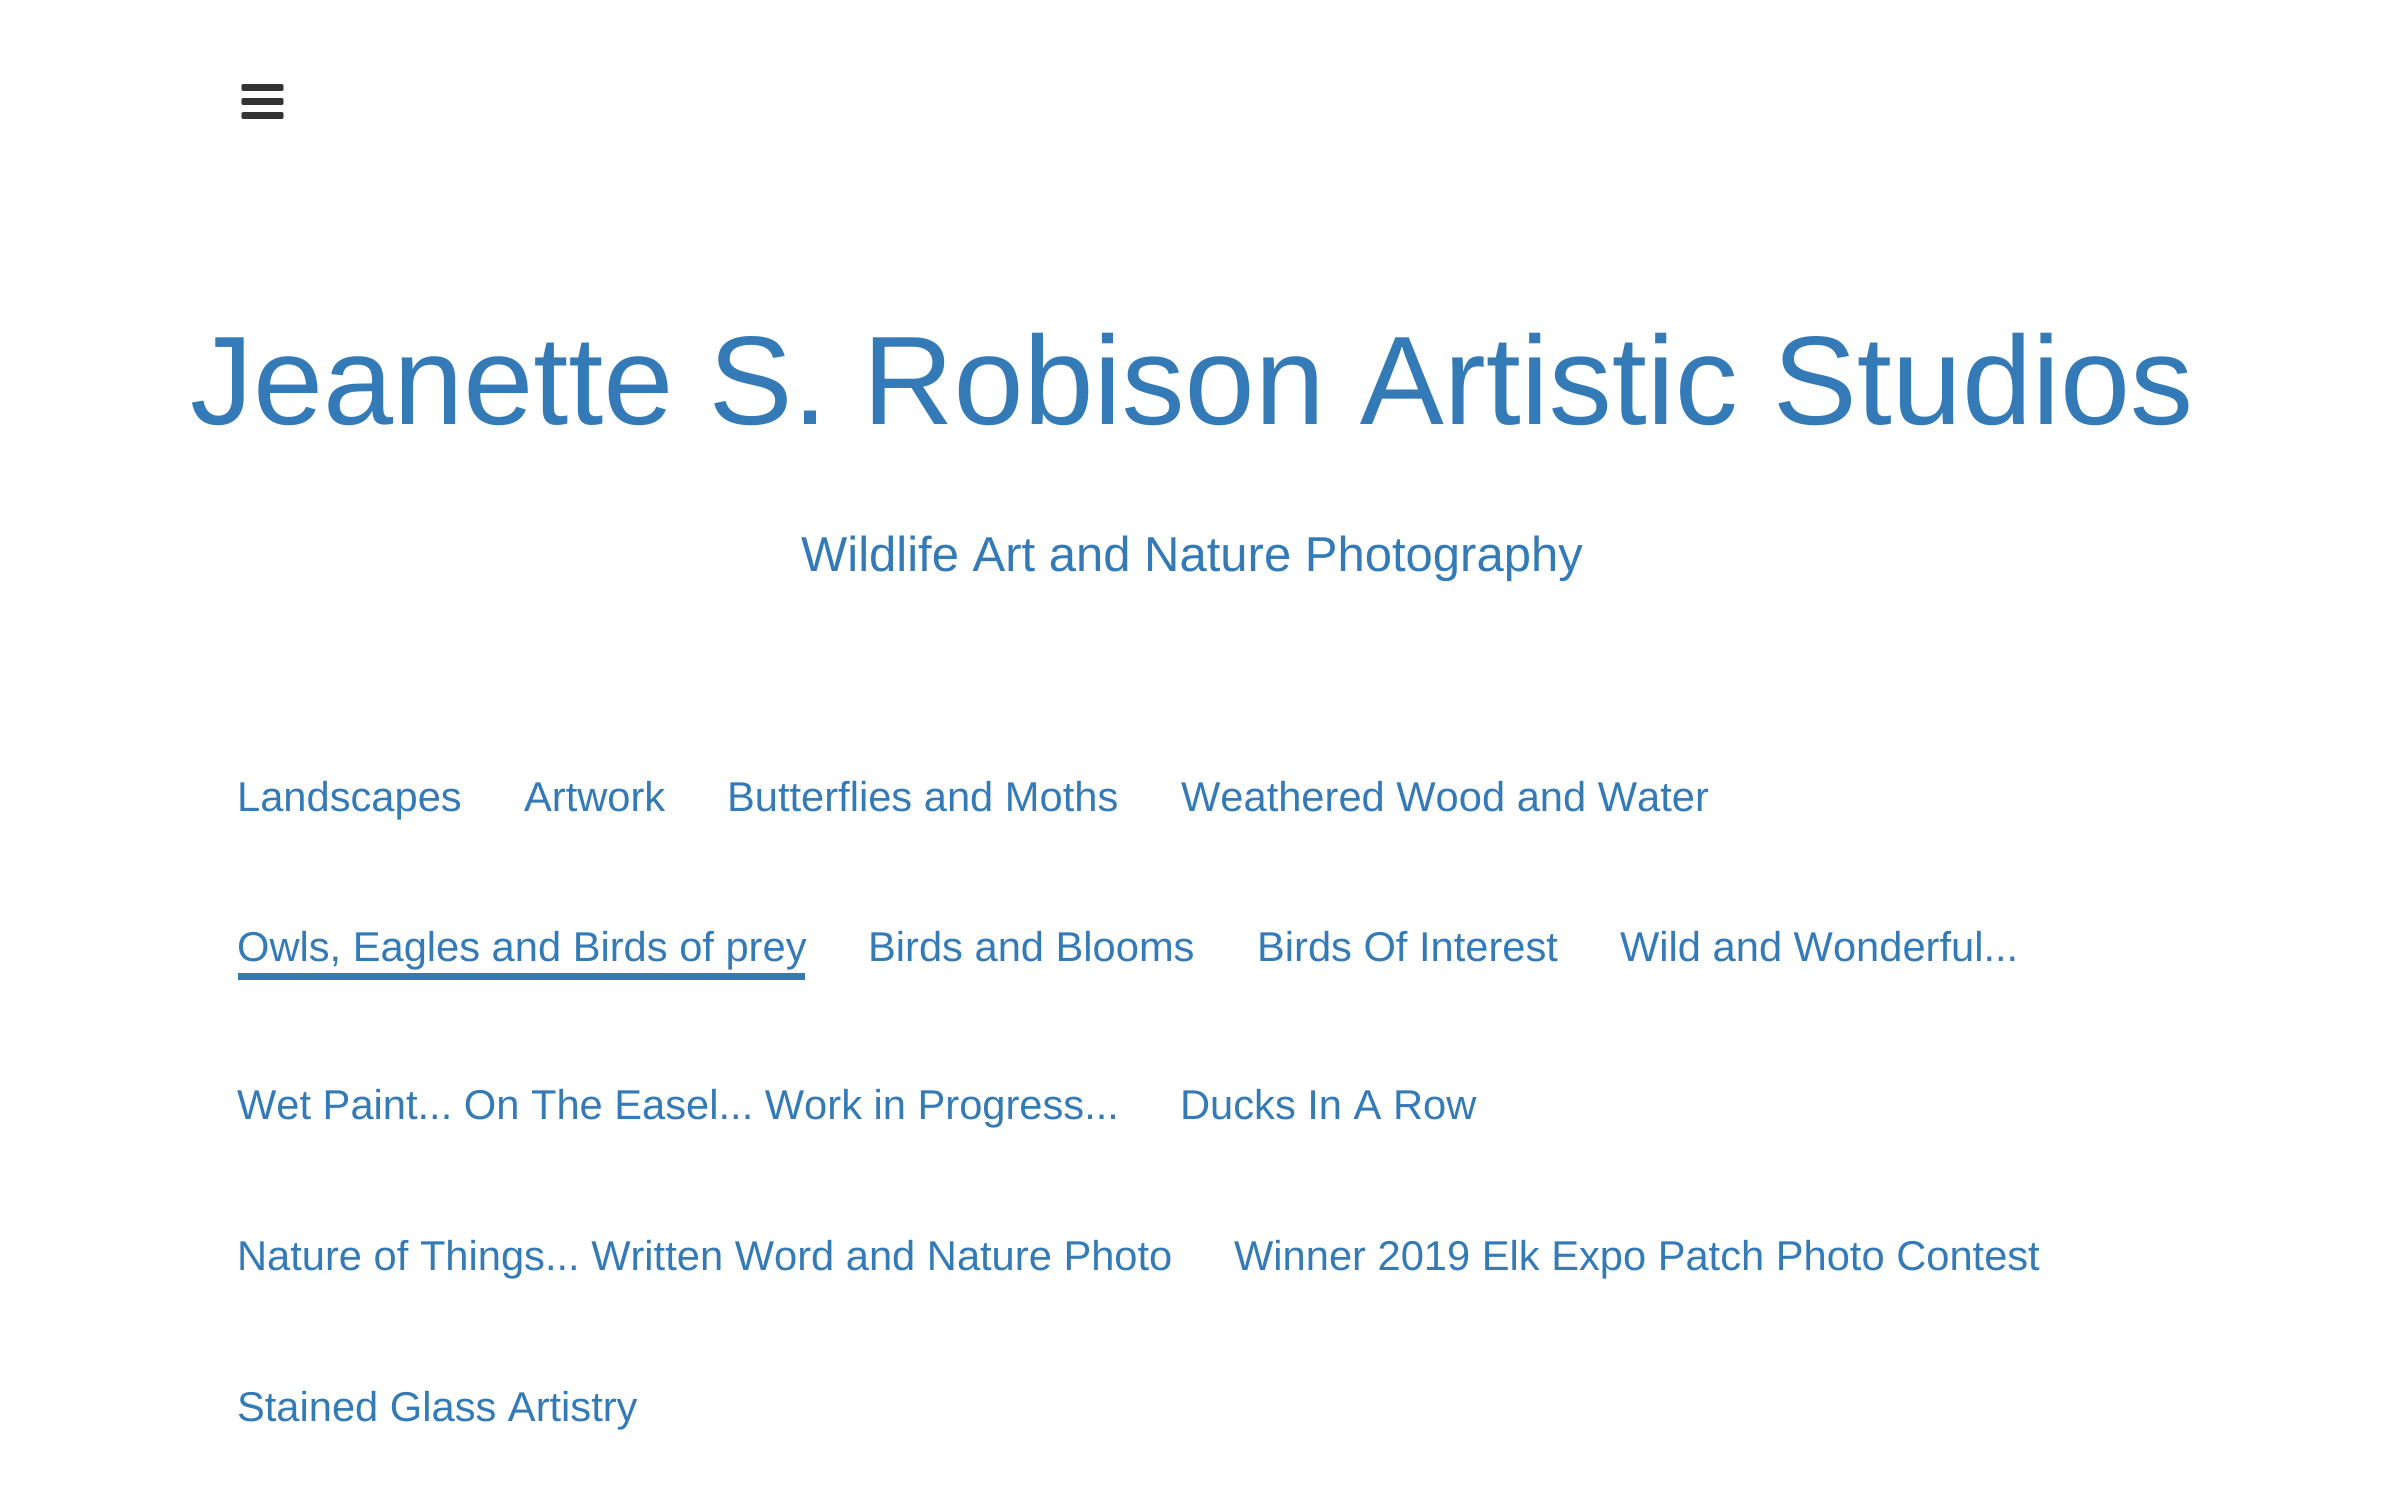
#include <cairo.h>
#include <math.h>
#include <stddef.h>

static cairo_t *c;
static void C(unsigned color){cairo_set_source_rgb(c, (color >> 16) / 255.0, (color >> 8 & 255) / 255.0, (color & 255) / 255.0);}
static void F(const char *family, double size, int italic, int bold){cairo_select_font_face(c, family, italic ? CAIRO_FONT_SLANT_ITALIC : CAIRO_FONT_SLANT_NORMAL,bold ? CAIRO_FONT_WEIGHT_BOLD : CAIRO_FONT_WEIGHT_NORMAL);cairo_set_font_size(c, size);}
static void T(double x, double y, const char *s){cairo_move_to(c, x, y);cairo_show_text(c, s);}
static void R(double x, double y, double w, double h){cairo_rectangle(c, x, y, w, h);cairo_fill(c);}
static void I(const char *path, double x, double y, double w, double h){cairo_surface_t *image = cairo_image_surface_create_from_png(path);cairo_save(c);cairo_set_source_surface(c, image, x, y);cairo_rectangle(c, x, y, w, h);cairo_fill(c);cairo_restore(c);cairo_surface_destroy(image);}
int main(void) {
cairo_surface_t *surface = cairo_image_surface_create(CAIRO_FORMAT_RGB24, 2383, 1506);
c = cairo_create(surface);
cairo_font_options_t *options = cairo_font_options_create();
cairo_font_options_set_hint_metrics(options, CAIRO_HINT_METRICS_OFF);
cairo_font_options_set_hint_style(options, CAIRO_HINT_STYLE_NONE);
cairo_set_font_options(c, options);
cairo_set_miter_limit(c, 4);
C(0xffffff);
cairo_paint(c);
I("1.png",241,84,43,35);
F("Liberation Sans",126,0,0);
C(0x337ab7);
T(190,424,"Jeanette S. Robison Artistic Studios");
F("Liberation Sans",49,0,0);
T(801,571,"Wildlife Art and Nature Photography");
F("Liberation Sans",41.65,0,0);
T(237,811,"Landscapes");
T(524,811,"Artwork");
T(727,811,"Butterflies and Moths");
T(1181,811,"Weathered Wood and Water");
R(238,973,567,7);
T(237,961,"Owls, Eagles and Birds of prey");
T(868,961,"Birds and Blooms");
T(1257,961,"Birds Of Interest");
T(1620,961,"Wild and Wonderful...");
T(237,1119,"Wet Paint... On The Easel... Work in Progress...");
T(1180,1119,"Ducks In A Row");
T(237,1270,"Nature of Things... Written Word and Nature Photo");
T(1234,1270,"Winner 2019 Elk Expo Patch Photo Contest");
T(237,1421,"Stained Glass Artistry");
cairo_surface_write_to_png(surface, "o.png");
cairo_font_options_destroy(options);
cairo_destroy(c);
cairo_surface_destroy(surface);
return 0;
}
